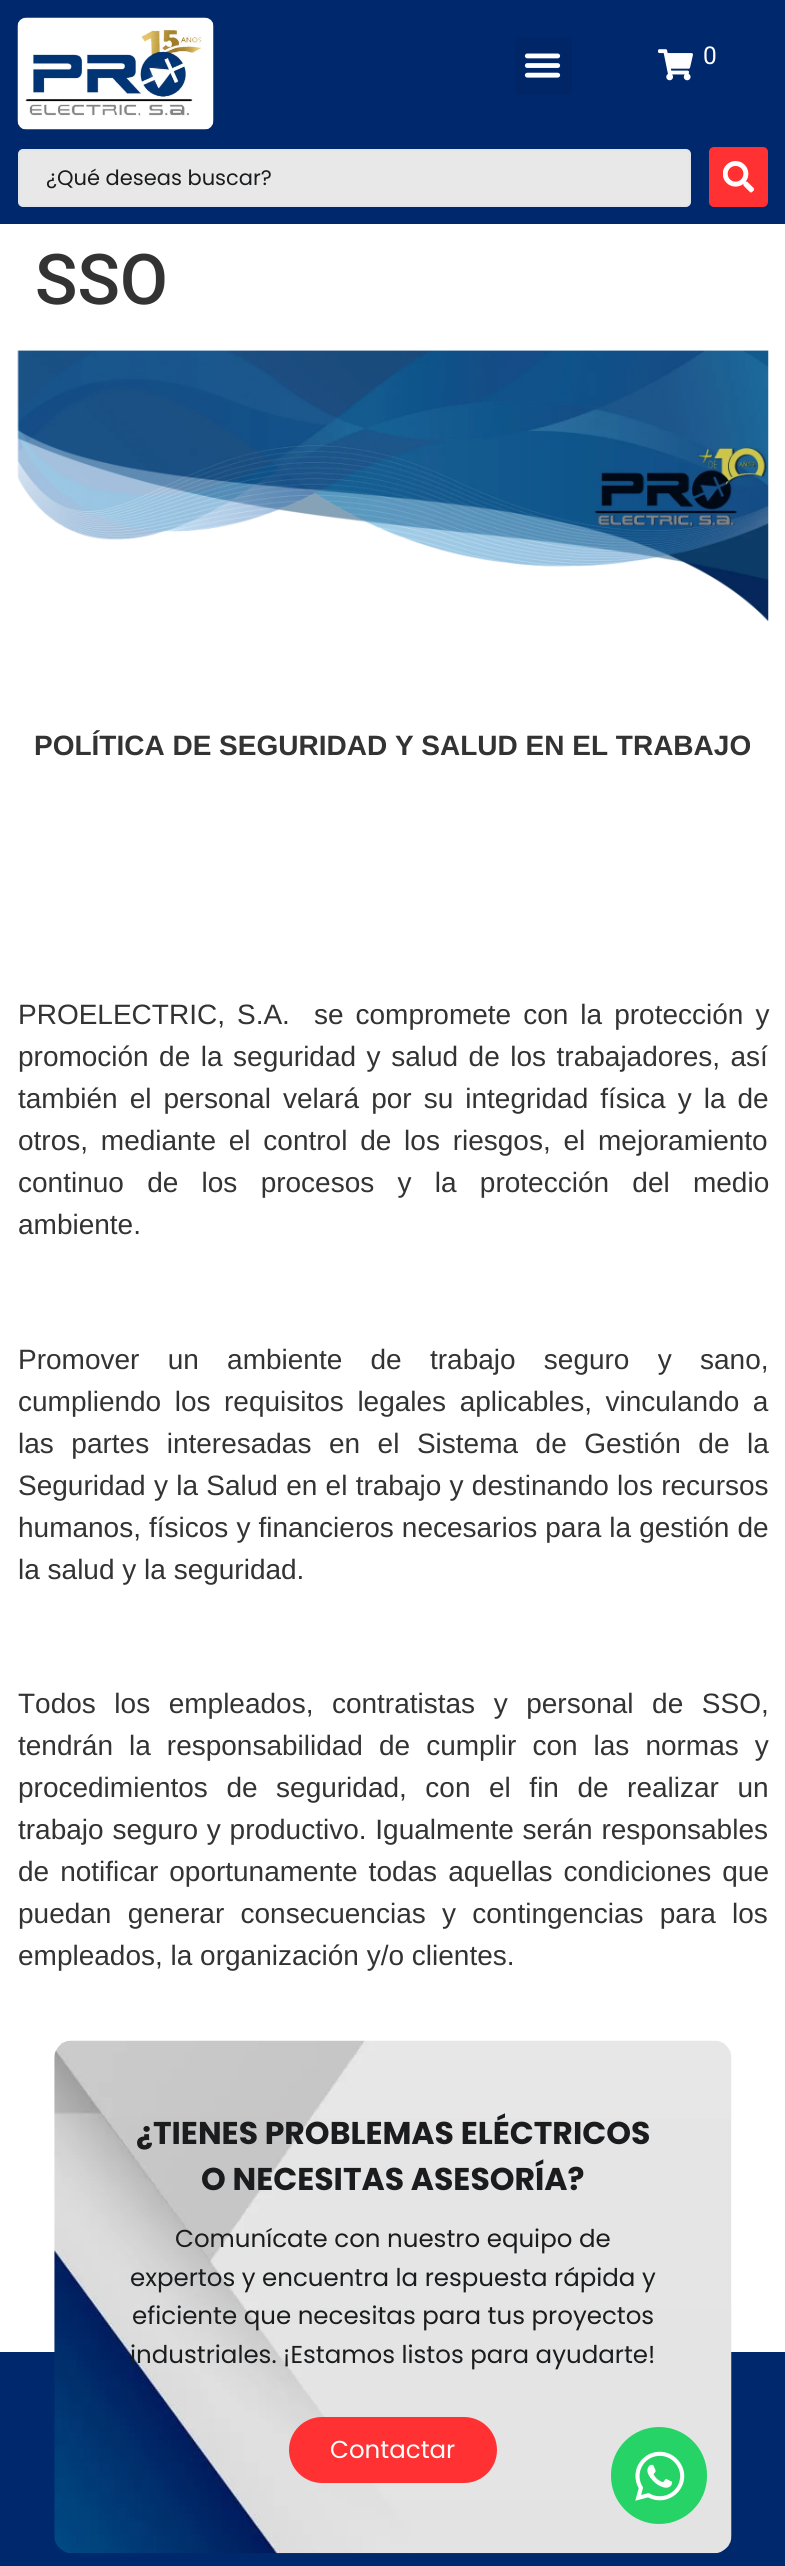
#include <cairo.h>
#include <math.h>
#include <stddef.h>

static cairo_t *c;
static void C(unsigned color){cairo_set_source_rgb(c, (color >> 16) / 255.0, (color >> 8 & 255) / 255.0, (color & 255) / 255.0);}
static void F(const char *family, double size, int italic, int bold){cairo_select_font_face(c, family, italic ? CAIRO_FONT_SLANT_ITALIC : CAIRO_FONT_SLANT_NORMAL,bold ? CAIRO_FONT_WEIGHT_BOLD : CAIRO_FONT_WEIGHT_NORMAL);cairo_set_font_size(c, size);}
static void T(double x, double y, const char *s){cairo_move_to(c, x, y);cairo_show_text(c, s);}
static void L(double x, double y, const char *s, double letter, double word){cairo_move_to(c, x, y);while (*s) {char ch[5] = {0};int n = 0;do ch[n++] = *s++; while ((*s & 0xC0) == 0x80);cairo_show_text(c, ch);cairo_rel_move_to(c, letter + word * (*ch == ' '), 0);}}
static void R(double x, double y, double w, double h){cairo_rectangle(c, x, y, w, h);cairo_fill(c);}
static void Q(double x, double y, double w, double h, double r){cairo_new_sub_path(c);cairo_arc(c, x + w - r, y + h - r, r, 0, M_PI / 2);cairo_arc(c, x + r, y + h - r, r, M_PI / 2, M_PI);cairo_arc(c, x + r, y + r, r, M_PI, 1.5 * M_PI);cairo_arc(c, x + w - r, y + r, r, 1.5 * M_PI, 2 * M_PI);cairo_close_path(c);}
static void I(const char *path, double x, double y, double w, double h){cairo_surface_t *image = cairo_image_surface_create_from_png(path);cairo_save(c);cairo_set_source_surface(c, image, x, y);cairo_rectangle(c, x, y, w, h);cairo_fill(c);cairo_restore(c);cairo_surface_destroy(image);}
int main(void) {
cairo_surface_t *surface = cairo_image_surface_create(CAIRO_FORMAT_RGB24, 785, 2566);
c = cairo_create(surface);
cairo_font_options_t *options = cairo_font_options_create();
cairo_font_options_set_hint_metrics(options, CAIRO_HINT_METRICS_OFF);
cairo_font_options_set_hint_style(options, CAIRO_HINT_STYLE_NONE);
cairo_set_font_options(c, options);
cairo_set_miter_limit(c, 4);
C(0xffffff);
cairo_paint(c);
C(0x00286d);
R(0,0,785,224);
I("1.png",17,17,197,113);
C(0x002668);
Q(515,37,57,58,5);
cairo_fill(c);
I("2.png",524,53,37,25);
I("3.png",658,49,35,32);
F("Roboto",24.5,0,0);
C(0xffffff);
T(703,64,"0");
C(0xe8e8e8);
Q(19,150,671,56,4);
cairo_fill_preserve(c);
C(0xe1e5eb);
cairo_stroke(c);
F("Poppins",21,0,0);
C(0x1a1c1e);
T(46,185,"¿Qué deseas buscar?");
C(0xff3133);
Q(709,147,59,60,5);
cairo_fill(c);
I("4.png",723,161,31,32);
F("Roboto Medium",70,0,0);
C(0x333333);
T(35,304,"SSO");
I("5.png",17,350,752,272);
F("Liberation Sans",28,0,1);
T(34,755,"POLÍTICA DE SEGURIDAD Y SALUD EN EL TRABAJO");
F("Liberation Sans",28,0,0);
L(18,1024,"PROELECTRIC, S.A.  se compromete con la protección y",0,4.25);
T(18,1066,"promoció");
L(133,1066,"n de la seguridad y salud de los trabajadores, así",0,2.75);
L(18,1108,"también el personal velará por su integridad física y la de",0,4.25);
L(18,1150,"otros, mediante el control de los riesgos, el mejoramiento",0,5);
L(18,1192,"continuo de los procesos y la protección del medio",0,15.5);
T(18,1234,"ambiente.");
L(18,1369,"Promover un ambiente de trabajo seguro y sano,",0,20.5);
L(18,1411,"cumpliendo los requisitos legales aplicables, vinculando a",0,5.75);
L(18,1453,"las partes interesadas en el Sistema de Gestión de la",0,9.75);
L(18,1495,"Seguridad y la Salud en el trabajo y destinando los recursos",0,.5);
L(18,1537,"humanos, físicos y financieros necesarios para la gestión de",0,.25);
T(18,1579,"la salud y la seguridad.");
L(18,1713,"Todos los empleados, contratistas y personal de SSO,",0,10.75);
L(18,1755,"tendrán la responsabilidad de cumplir con las normas y",0,8.25);
L(18,1797,"procedimientos de seguridad, con el fin de realizar un",0,10.75);
L(18,1839,"trabajo seguro y productivo. Igualmente serán responsables",0,1);
L(18,1881,"de notificar oportunamente todas aquellas condiciones que",0,3.25);
L(18,1923,"puedan generar consecuencias y contingencias para los",0,8.5);
T(18,1965,"empleados, la organización y/o clientes.");
C(0x00286d);
R(0,2352,785,214);
I("6.png",54,2040,678,514);
F("Poppins",31.5,0,1);
C(0x1a1c1e);
T(136,2144,"¿TIENES PROBLEMAS ELÉCTRICOS");
T(201,2190,"O NECESITAS ASESORÍA?");
F("Poppins",24.5,0,0);
T(175,2247,"Comunícate con nuestro equipo de");
T(130,2286,"expertos y encuentra la respuesta rápida y");
T(132,2324,"eficiente que necesitas para tus proyectos");
T(130,2363,"industriales. ¡Estamos listos para ayudarte!");
C(0xff3133);
Q(289,2417,208,66,33);
cairo_fill(c);
C(0xffffff);
T(330,2458,"Contactar");
C(0x25d366);
Q(611,2427,96,97,48);
cairo_fill(c);
I("7.png",635,2451,50,50);
cairo_surface_write_to_png(surface, "o.png");
cairo_font_options_destroy(options);
cairo_destroy(c);
cairo_surface_destroy(surface);
return 0;
}
